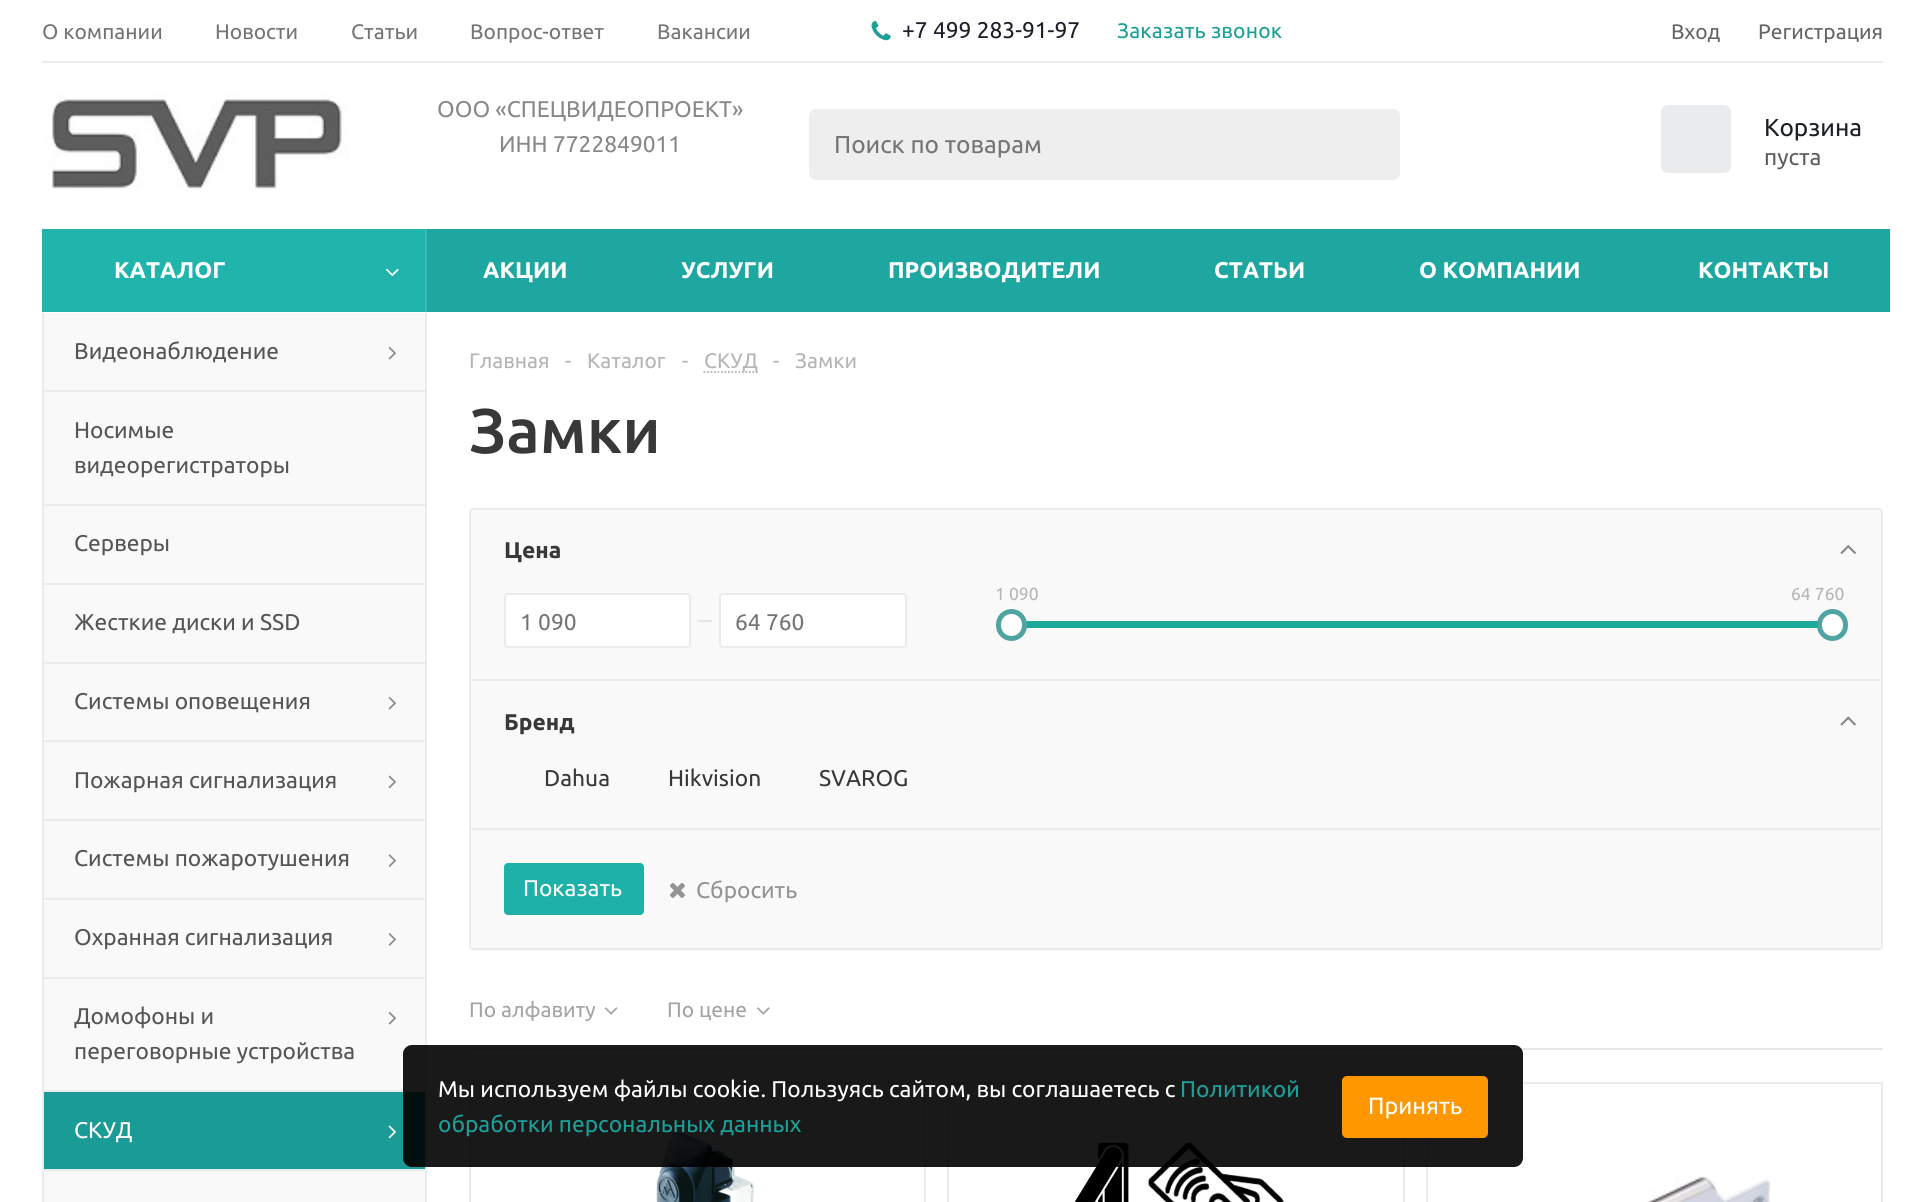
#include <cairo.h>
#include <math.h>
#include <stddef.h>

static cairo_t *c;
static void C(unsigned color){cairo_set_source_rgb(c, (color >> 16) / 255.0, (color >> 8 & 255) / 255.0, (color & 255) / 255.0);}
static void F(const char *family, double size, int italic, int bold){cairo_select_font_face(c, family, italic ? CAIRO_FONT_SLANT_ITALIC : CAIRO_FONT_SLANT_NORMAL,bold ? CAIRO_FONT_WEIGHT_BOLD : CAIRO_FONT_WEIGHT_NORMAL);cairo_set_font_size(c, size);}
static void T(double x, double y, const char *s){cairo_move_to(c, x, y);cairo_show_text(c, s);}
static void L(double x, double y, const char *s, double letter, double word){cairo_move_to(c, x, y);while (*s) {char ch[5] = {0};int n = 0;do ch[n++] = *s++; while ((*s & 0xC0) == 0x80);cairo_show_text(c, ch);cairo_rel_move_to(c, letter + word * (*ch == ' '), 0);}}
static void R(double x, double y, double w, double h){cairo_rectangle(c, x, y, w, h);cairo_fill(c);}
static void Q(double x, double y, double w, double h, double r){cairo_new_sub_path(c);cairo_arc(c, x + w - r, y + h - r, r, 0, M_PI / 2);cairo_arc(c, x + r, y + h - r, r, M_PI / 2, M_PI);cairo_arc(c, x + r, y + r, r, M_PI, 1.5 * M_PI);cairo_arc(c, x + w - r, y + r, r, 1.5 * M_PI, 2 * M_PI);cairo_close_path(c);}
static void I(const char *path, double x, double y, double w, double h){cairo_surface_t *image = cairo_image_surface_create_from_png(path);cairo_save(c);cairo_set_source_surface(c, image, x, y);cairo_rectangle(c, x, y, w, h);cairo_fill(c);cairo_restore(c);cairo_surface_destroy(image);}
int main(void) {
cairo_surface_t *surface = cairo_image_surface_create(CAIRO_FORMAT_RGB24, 1924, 1202);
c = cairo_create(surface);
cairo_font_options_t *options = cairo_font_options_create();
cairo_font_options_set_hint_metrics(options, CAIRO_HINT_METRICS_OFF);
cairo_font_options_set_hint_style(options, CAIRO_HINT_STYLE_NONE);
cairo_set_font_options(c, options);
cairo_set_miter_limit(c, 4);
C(0xffffff);
cairo_paint(c);
F("Ubuntu",21,0,0);
C(0x757575);
T(42,39,"О компании");
T(215,39,"Новости");
T(351,39,"Статьи");
T(470,39,"Вопрос-ответ");
T(657,39,"Вакансии");
I("1.png",871,21,20,20);
F("Ubuntu",22.75,0,0);
C(0x1d2029);
T(902,38,"+7 499 283-91-97");
F("Ubuntu",21,0,0);
C(0x1b9f99);
L(1117,38,"Заказать звонок",.2,0);
C(0x666666);
T(1671,39,"Вход");
T(1758,39,"Регистрация");
C(0xeaebec);
R(42,61,1841,2);
I("2.png",46,93,304,97);
F("Ubuntu",22.75,0,0);
C(0x888888);
T(437,117,"ООО «СПЕЦВИДЕОПРОЕКТ»");
T(499,152,"ИНН 7722849011");
C(0xeeeeee);
Q(809,109,591,71,7);
cairo_fill(c);
F("Ubuntu",24.5,0,0);
C(0x757575);
T(834,153,"Поиск по товарам");
C(0xeaebec);
Q(1661,105,70,68,7);
cairo_fill(c);
C(0x1d2029);
T(1764,136,"Корзина");
F("Ubuntu",22.75,0,0);
C(0x5f5f5f);
T(1764,165,"пуста");
C(0x1ea7a1);
R(427,229,1463,83);
C(0x20b4ad);
R(42,229,383,83);
F("Ubuntu",22.75,0,1);
C(0xffffff);
T(114,278,"КАТАЛОГ");
C(0x36bcb5);
R(425,229,2,83);
I("3.png",386,268,13,9);
C(0xffffff);
T(483,278,"АКЦИИ");
T(681,278,"УСЛУГИ");
T(888,278,"ПРОИЗВОДИТЕЛИ");
T(1214,278,"СТАТЬИ");
T(1419,278,"О КОМПАНИИ");
T(1698,278,"КОНТАКТЫ");
C(0xf9f9f9);
R(44,313,381,77);
C(0xeaebec);
R(425,313,2,77);
R(42,313,2,77);
F("Ubuntu",22.75,0,0);
C(0x555555);
T(74,359,"Видеонаблюдение");
I("4.png",388,346,8,14);
C(0xf9f9f9);
R(44,392,381,112);
C(0xeaebec);
R(42,390,385,2);
R(425,390,2,114);
R(42,390,2,114);
C(0x555555);
T(74,438,"Носимые");
T(74,473,"видеорегистраторы");
C(0xf9f9f9);
R(44,506,381,77);
C(0xeaebec);
R(42,504,385,2);
R(425,504,2,79);
R(42,504,2,79);
C(0x555555);
T(74,551,"Серверы");
C(0xf9f9f9);
R(44,585,381,77);
C(0xeaebec);
R(42,583,385,2);
R(425,583,2,79);
R(42,583,2,79);
C(0x555555);
T(74,630,"Жесткие диски и SSD");
C(0xf9f9f9);
R(44,664,381,76);
C(0xeaebec);
R(42,662,385,2);
R(425,662,2,78);
R(42,662,2,78);
C(0x555555);
T(74,709,"Системы оповещения");
I("4.png",388,696,8,14);
C(0xf9f9f9);
R(44,742,381,77);
C(0xeaebec);
R(42,740,385,2);
R(425,740,2,79);
R(42,740,2,79);
C(0x555555);
T(74,788,"Пожарная сигнализация");
I("5.png",388,775,8,14);
C(0xf9f9f9);
R(44,821,381,77);
C(0xeaebec);
R(42,819,385,2);
R(425,819,2,79);
R(42,819,2,79);
C(0x555555);
T(74,866,"Системы пожаротушения");
I("6.png",388,854,8,13);
C(0xf9f9f9);
R(44,900,381,77);
C(0xeaebec);
R(42,898,385,2);
R(425,898,2,79);
R(42,898,2,79);
C(0x555555);
T(74,945,"Охранная сигнализация");
I("7.png",388,933,8,13);
C(0xf9f9f9);
R(44,979,381,111);
C(0xeaebec);
R(42,977,385,2);
R(425,977,2,113);
R(42,977,2,113);
C(0x555555);
T(74,1024,"Домофоны и");
I("4.png",388,1011,8,14);
T(74,1059,"переговорные устройства");
C(0x1a9b95);
R(44,1092,381,77);
C(0xeaebec);
R(42,1090,385,2);
R(425,1090,2,79);
R(42,1090,2,79);
C(0xffffff);
T(74,1138,"СКУД");
I("8.png",388,1125,8,14);
C(0xf9f9f9);
R(44,1171,381,31);
C(0xeaebec);
R(42,1169,385,2);
R(425,1169,2,33);
R(42,1169,2,33);
F("Ubuntu",21,0,0);
C(0xb6b5b5);
T(469,368,"Главная");
T(565,368,"-");
T(587,368,"Каталог");
T(682,368,"-");
cairo_new_path(c);
cairo_move_to(c,703.5,372);
cairo_line_to(c,758,372);
C(0xb4b4b4);
cairo_set_line_width(c,1.8);
cairo_set_dash(c,(double[]){1.75,1.75},2,0);
cairo_stroke(c);
C(0xb6b5b5);
T(704,368,"СКУД");
T(773,368,"-");
T(795,368,"Замки");
F("Ubuntu Medium",63,0,0);
C(0x383838);
T(469,453,"Замки");
C(0xf9f9f9);
Q(470,509,1412,440,3);
cairo_fill_preserve(c);
C(0xeaebec);
cairo_set_line_width(c,2);
cairo_set_dash(c,NULL,0,0);
cairo_stroke(c);
R(471,679,1410,2);
F("Ubuntu",22.75,0,1);
C(0x383838);
T(504,558,"Цена");
I("9.png",1840,545,16,9);
F("Ubuntu",17.5,0,0);
C(0xb6b5b5);
T(995,600,"1 090");
T(1791,600,"64 760");
C(0x1da898);
R(1026,621,792,7);
C(0xffffff);
Q(998.5,611.5,26,27,13);
cairo_fill_preserve(c);
C(0x4fa4a2);
cairo_set_line_width(c,5);
cairo_stroke(c);
C(0xffffff);
Q(1819.5,611.5,26,27,13);
cairo_fill_preserve(c);
C(0x4fa4a2);
cairo_stroke(c);
C(0xffffff);
Q(505,594,185,53,3);
cairo_fill_preserve(c);
C(0xeaebec);
cairo_set_line_width(c,2);
cairo_stroke(c);
F("Ubuntu",22.75,0,0);
C(0x757575);
T(520,630,"1 090");
C(0xe5e5e5);
R(698,620,14,2);
C(0xffffff);
Q(720,594,186,53,3);
cairo_fill_preserve(c);
C(0xeaebec);
cairo_stroke(c);
C(0x757575);
T(735,630,"64 760");
C(0xeaebec);
R(471,828,1410,2);
F("Ubuntu",22.75,0,1);
C(0x383838);
T(504,730,"Бренд");
I("10.png",1840,716,16,10);
F("Ubuntu",22.75,0,0);
T(544,786,"Dahua");
T(668,786,"Hikvision");
T(819,786,"SVAROG");
C(0x1eb1aa);
Q(504,863,140,52,4);
cairo_fill(c);
C(0xffffff);
T(523,896,"Показать");
I("11.png",670,883,15,15);
C(0x939393);
T(696,898,"Сбросить");
C(0xe5e5e5);
R(469,1048,1414,2);
F("Ubuntu",21,0,0);
C(0xa5a3a3);
T(469,1017,"По алфавиту");
I("12.png",604,1007,14,8);
T(667,1017,"По цене");
I("13.png",757,1007,13,8);
cairo_rectangle(c,470,1083,455,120);
C(0xeaebec);
cairo_stroke(c);
I("14.png",656,1132,98,70);
cairo_rectangle(c,948,1083,456,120);
cairo_stroke(c);
I("15.png",1074,1142,210,60);
cairo_rectangle(c,1427,1083,455,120);
cairo_stroke(c);
I("16.png",1647,1175,124,27);
cairo_set_source_rgba(c,0,0,0,0.9);
Q(403,1045,1120,122,9);
cairo_fill(c);
F("Ubuntu",22.75,0,0);
C(0xffffff);
T(438,1097,"Мы используем файлы cookie. Пользуясь сайтом, вы соглашаетесь с");
C(0x1b9f99);
T(1180,1097,"Политикой");
T(438,1132,"обработки персональных данных");
C(0xff9800);
Q(1342,1076,146,62,5);
cairo_fill(c);
F("Ubuntu",23.5,0,0);
C(0xffffff);
T(1368,1114,"Принять");
cairo_surface_write_to_png(surface, "o.png");
cairo_font_options_destroy(options);
cairo_destroy(c);
cairo_surface_destroy(surface);
return 0;
}
